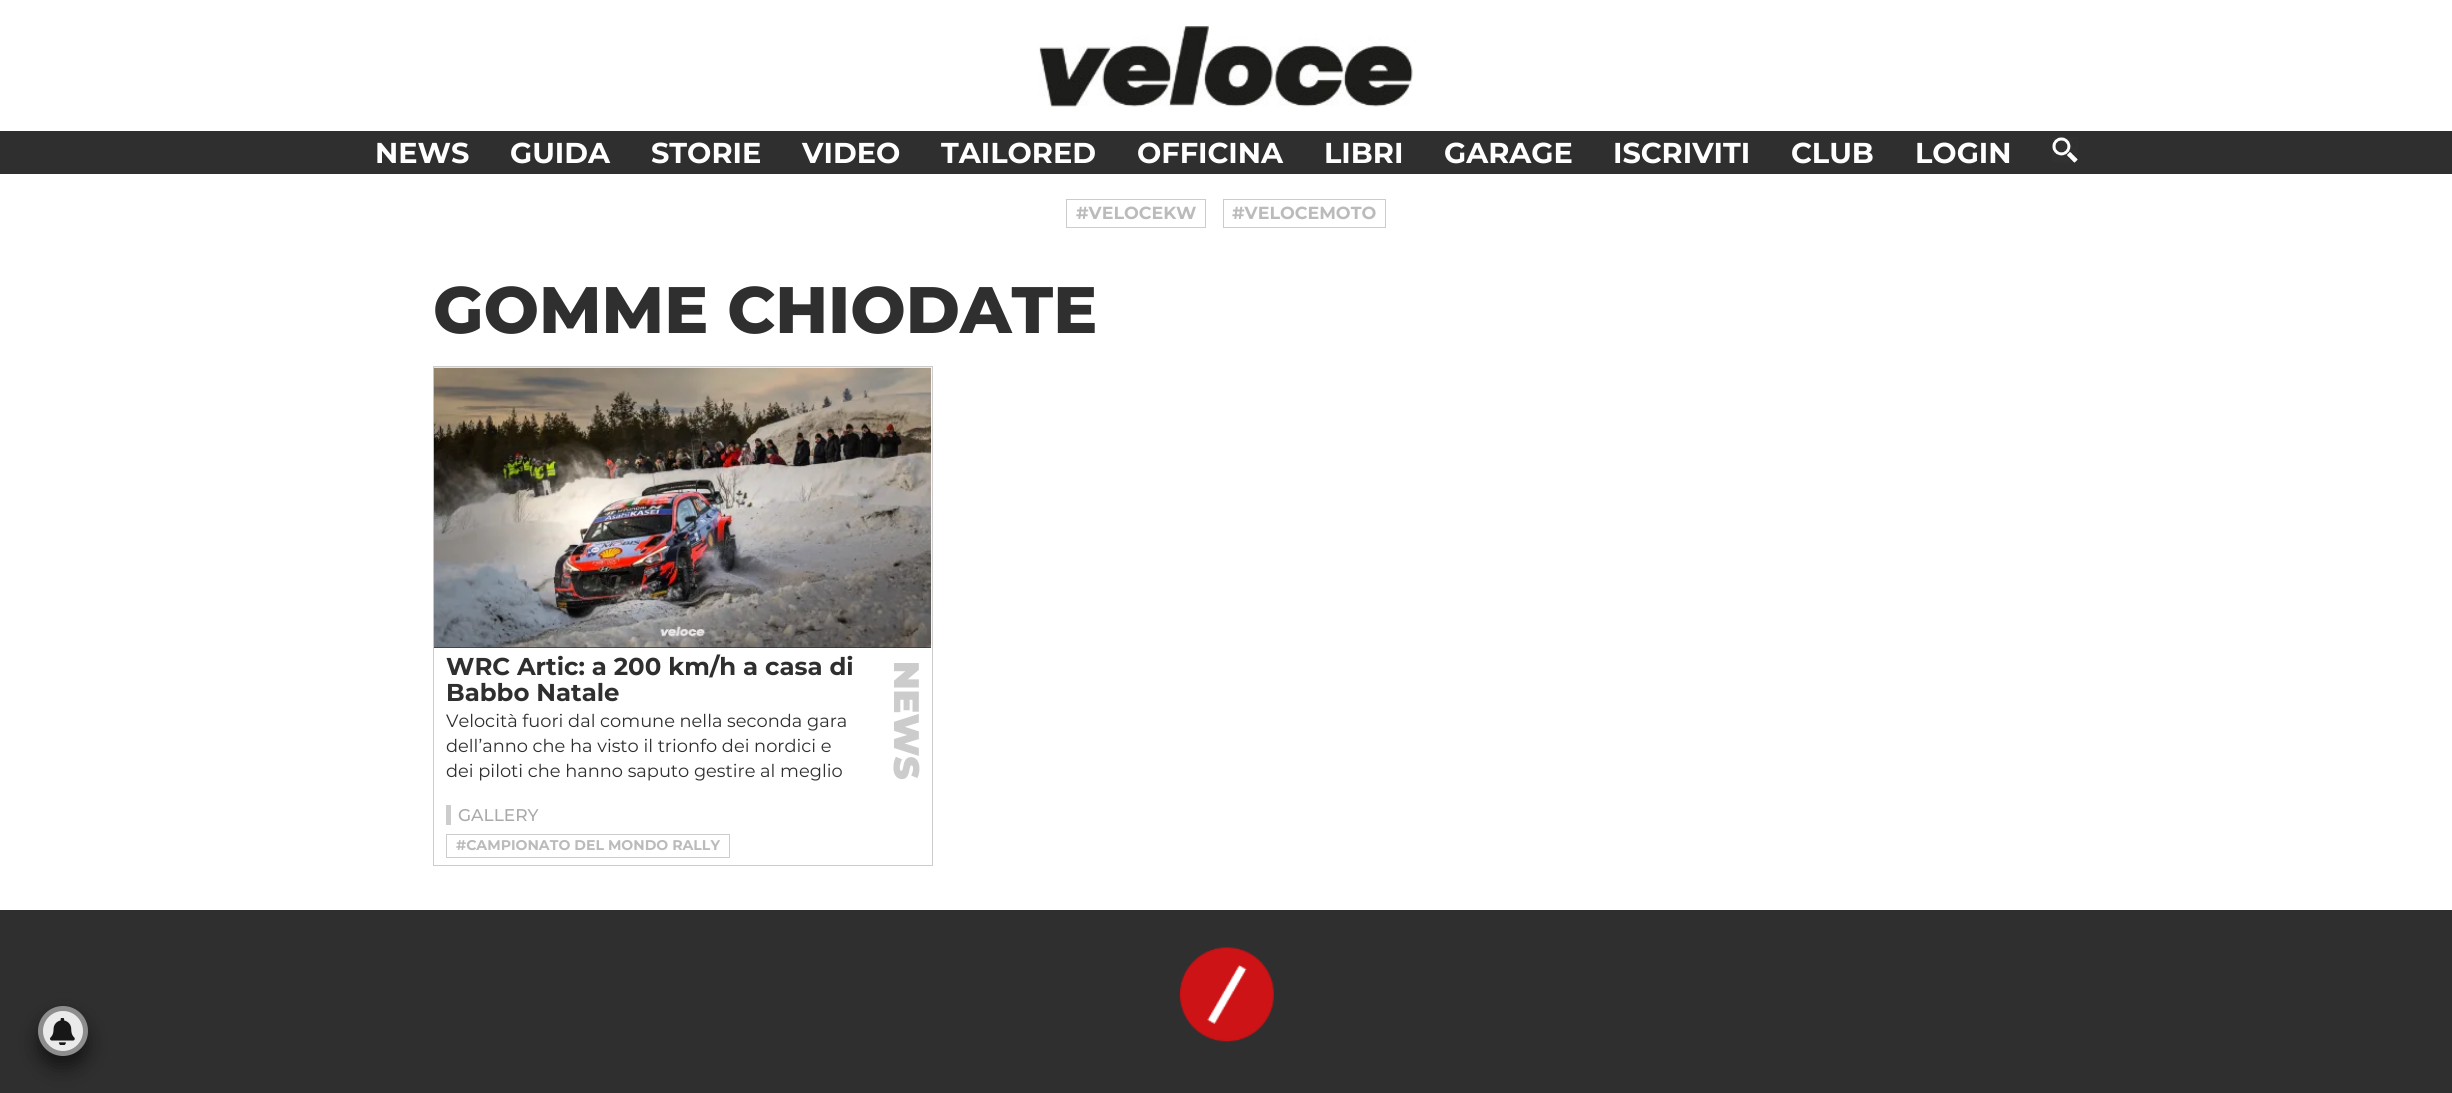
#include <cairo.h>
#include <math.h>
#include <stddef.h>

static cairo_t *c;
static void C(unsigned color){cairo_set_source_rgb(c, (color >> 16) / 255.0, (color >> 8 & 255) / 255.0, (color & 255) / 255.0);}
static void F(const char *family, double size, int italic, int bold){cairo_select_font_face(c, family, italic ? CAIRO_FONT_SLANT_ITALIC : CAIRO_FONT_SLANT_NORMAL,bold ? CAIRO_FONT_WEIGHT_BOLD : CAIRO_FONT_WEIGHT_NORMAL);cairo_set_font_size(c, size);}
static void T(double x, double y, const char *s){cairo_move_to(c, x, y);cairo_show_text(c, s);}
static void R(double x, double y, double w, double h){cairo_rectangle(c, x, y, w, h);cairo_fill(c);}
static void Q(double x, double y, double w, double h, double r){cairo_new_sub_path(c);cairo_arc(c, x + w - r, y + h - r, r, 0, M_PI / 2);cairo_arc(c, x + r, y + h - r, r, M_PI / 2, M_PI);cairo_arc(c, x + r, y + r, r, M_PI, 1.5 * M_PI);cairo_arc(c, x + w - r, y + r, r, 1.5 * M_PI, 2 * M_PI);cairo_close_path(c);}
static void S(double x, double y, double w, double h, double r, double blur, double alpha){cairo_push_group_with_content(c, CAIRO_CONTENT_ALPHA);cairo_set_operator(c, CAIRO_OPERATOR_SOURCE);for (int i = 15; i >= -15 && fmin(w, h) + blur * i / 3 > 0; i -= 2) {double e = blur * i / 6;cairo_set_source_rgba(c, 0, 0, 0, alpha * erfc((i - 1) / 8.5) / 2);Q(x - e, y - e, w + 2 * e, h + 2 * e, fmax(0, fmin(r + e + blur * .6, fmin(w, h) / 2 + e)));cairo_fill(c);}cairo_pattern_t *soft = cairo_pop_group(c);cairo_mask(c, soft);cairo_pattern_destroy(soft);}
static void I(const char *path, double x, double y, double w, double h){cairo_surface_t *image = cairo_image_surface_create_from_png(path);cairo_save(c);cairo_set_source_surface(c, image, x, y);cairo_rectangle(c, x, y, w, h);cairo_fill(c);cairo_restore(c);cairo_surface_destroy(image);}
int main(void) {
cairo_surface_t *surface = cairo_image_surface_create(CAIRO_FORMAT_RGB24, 2452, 1093);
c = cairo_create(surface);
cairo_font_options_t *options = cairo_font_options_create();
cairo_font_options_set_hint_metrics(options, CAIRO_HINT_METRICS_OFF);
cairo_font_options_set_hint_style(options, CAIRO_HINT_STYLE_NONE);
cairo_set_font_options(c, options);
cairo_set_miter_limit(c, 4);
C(0xffffff);
cairo_paint(c);
I("1.png",1039,26,374,81);
C(0x2f2f2f);
R(0,131,2452,43);
F("Montserrat",28.75,0,1);
C(0xffffff);
T(375,163,"NEWS");
T(510,163,"GUIDA");
T(651,163,"STORIE");
T(802,163,"VIDEO");
T(941,163,"TAILORED");
T(1137,163,"OFFICINA");
T(1324,163,"LIBRI");
T(1444,163,"GARAGE");
T(1613,163,"ISCRIVITI");
T(1791,163,"CLUB");
T(1915,163,"LOGIN");
I("2.png",2052,137,26,26);
cairo_rectangle(c,1066.5,199.5,139,28);
C(0xcccccc);
cairo_set_line_width(c,1);
cairo_stroke(c);
F("Montserrat",17.5,0,1);
C(0xbbbbbb);
T(1076,219,"#VELOCEKW");
cairo_rectangle(c,1223.5,199.5,162,28);
C(0xcccccc);
cairo_stroke(c);
C(0xbbbbbb);
T(1232,219,"#VELOCEMOTO");
F("Montserrat ExtraBold",65.6,0,0);
C(0x2f2f2f);
T(433,333,"GOMME CHIODATE");
cairo_rectangle(c,433.5,366.5,499,499);
C(0xcccccc);
cairo_stroke(c);
C(0x333333);
R(434,647,497,1);
I("3.png",433,367,499,281);
F("Montserrat",24.4,0,1);
C(0x2f2f2f);
T(446,675,"WRC Artic: a 200 km/h a casa di");
T(446,701,"Babbo Natale");
F("Montserrat",17.8,0,0);
T(446,727,"Velocità fuori dal comune nella seconda gara");
T(446,752,"dell’anno che ha visto il trionfo dei nordici e");
T(446,777,"dei piloti che hanno saputo gestire al meglio");
F("Montserrat Black",35.5,0,0);
C(0xcccccc);
cairo_save(c);
cairo_translate(c,894,661);
cairo_rotate(c,90 * M_PI / 180);
T(0,0,"NEWS");
cairo_restore(c);
R(446,805,5,20);
F("Montserrat Medium",17,0,0);
C(0xaaaaaa);
T(458,821,"GALLERY");
cairo_rectangle(c,446.5,834.5,283,23);
C(0xcccccc);
cairo_stroke(c);
F("Montserrat",14.1,0,1);
C(0xbbbbbb);
T(456,850,"#CAMPIONATO DEL MONDO RALLY");
C(0x2f2f2f);
R(0,910,2452,183);
I("4.png",1180,947,94,95);
C(0x050505);
S(38,1018,50,50,25,9.5,.6);
C(0xeaeaea);
cairo_arc(c,63,1031,22.5,0,2 * M_PI);
cairo_fill_preserve(c);
C(0x8d8d8d);
cairo_set_line_width(c,5);
cairo_stroke(c);
I("5.png",50,1018,25,27);
cairo_surface_write_to_png(surface, "o.png");
cairo_font_options_destroy(options);
cairo_destroy(c);
cairo_surface_destroy(surface);
return 0;
}
